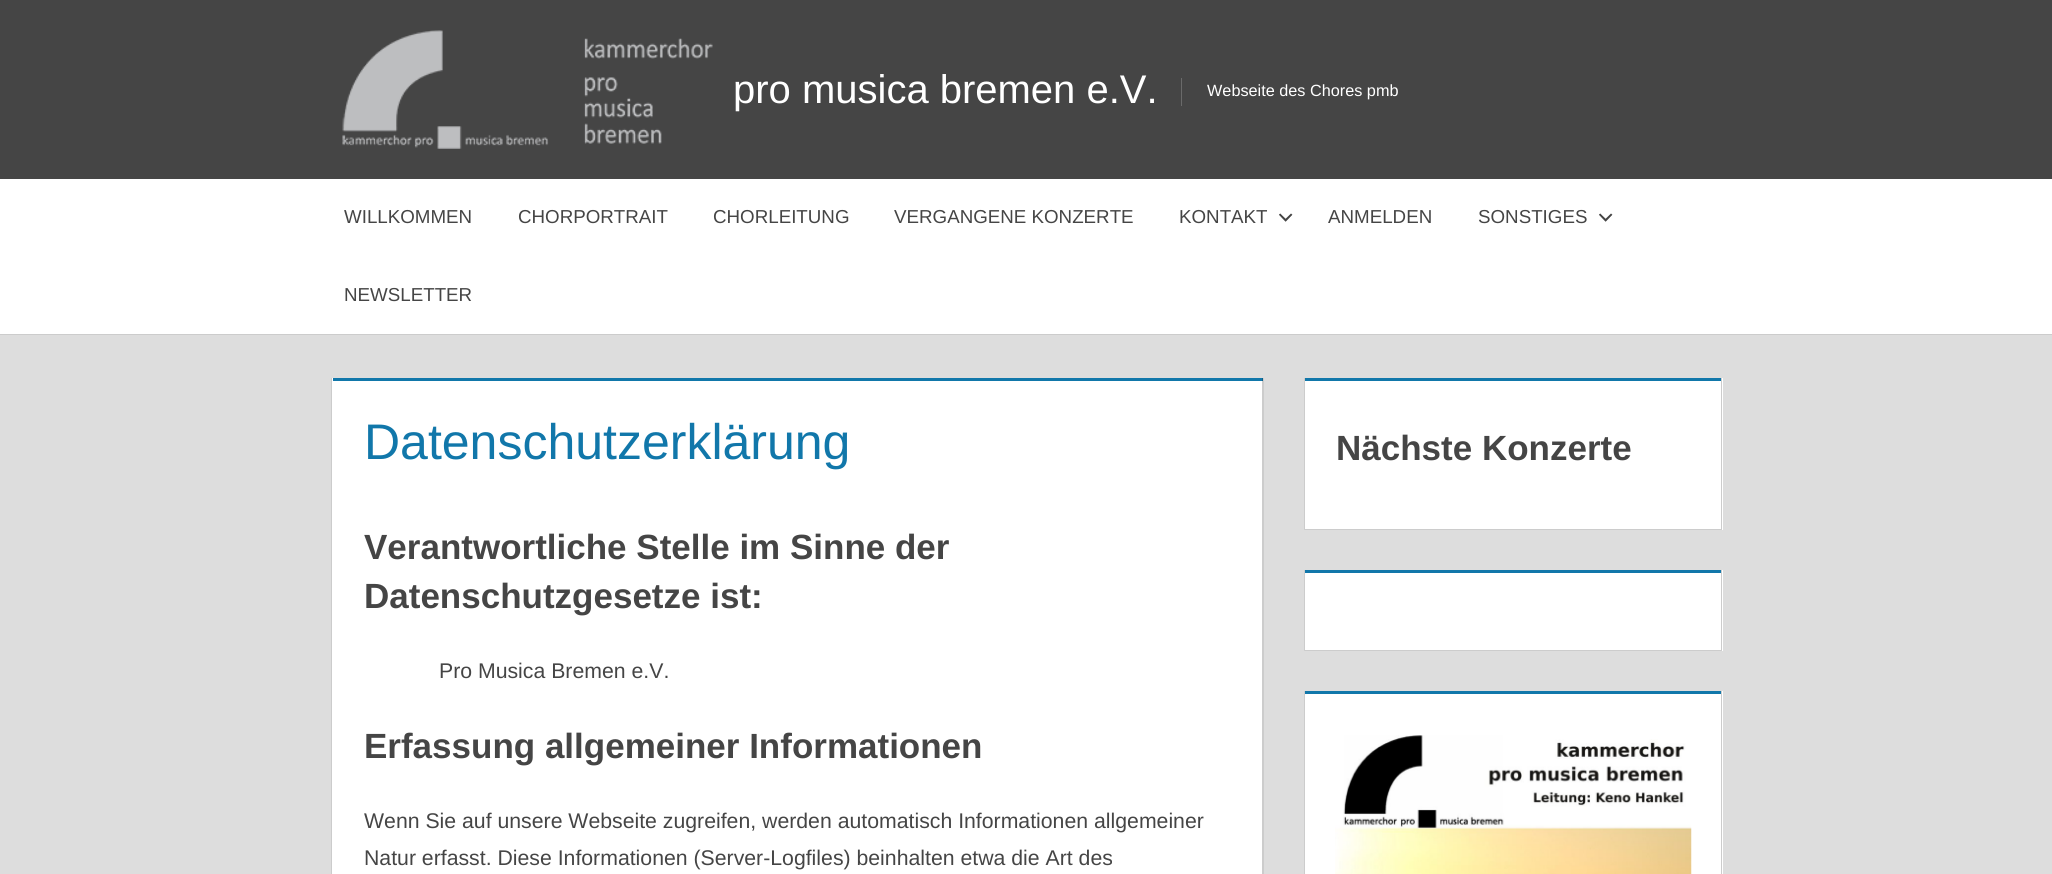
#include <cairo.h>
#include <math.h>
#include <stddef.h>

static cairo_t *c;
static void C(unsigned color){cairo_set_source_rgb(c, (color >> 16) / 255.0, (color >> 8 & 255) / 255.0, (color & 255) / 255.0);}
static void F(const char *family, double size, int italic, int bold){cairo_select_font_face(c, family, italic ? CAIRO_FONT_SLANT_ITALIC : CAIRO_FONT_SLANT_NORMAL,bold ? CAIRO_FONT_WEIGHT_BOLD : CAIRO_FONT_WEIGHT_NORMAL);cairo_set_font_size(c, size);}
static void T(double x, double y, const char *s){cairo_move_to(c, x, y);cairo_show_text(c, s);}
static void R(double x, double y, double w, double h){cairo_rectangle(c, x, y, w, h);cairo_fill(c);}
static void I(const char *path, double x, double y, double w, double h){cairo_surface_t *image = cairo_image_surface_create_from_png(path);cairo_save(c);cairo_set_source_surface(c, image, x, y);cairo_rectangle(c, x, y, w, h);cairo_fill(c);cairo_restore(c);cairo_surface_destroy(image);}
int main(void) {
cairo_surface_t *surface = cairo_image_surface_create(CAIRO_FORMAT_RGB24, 2052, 874);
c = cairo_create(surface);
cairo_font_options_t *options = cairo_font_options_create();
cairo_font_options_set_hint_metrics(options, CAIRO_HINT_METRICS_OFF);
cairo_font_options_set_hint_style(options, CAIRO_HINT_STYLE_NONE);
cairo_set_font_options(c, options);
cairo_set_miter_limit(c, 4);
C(0xdddddd);
cairo_paint(c);
C(0x454545);
R(0,0,2052,179);
I("1.png",342,30,371,119);
F("Liberation Sans",40,0,0);
C(0xffffff);
T(733,103,"pro musica bremen e.V.");
C(0x6a6a6a);
R(1181,78,1,28);
F("Liberation Sans",16.25,0,0);
C(0xffffff);
T(1207,96,"Webseite des Chores pmb");
R(0,179,2052,155);
C(0xcccccc);
R(0,334,2052,1);
F("Liberation Sans",18.75,0,0);
C(0x454545);
T(344,223,"WILLKOMMEN");
T(518,223,"CHORPORTRAIT");
T(713,223,"CHORLEITUNG");
T(894,223,"VERGANGENE KONZERTE");
T(1179,223,"KONTAKT");
I("2.png",1279,213,14,9);
T(1328,223,"ANMELDEN");
T(1478,223,"SONSTIGES");
I("2.png",1599,213,14,9);
T(344,301,"NEWSLETTER");
C(0xffffff);
R(332,378,932,496);
C(0x1177aa);
R(333,378,930,3);
cairo_set_source_rgba(c,0,0,0,0.2);
cairo_new_path(c);
cairo_move_to(c,1264,378);
cairo_line_to(c,1264,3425);
cairo_line_to(c,1262,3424);
cairo_line_to(c,1262,378);
cairo_close_path(c);
cairo_fill(c);
C(0xcccccc);
cairo_new_path(c);
cairo_move_to(c,331,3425);
cairo_line_to(c,331,378);
cairo_line_to(c,332,378);
cairo_line_to(c,332,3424);
cairo_close_path(c);
cairo_fill(c);
F("Liberation Sans",50,0,0);
C(0x1177aa);
T(364,459,"Datenschutzerklärung");
F("Liberation Sans",35,0,1);
C(0x454545);
T(364,559,"Verantwortliche Stelle im Sinne der");
T(364,608,"Datenschutzgesetze ist:");
F("Liberation Sans",21.25,0,0);
T(439,678,"Pro Musica Bremen e.V.");
F("Liberation Sans",35,0,1);
T(364,758,"Erfassung allgemeiner Informationen");
F("Liberation Sans",21.25,0,0);
T(364,828,"Wenn Sie auf unsere Webseite zugreifen, werden automatisch Informationen allgemeiner");
T(364,865,"Natur erfasst. Diese Informationen (Server-Logfiles) beinhalten etwa die Art des");
C(0xffffff);
R(1304,378,419,152);
C(0x1177aa);
R(1305,378,416,3);
C(0xcccccc);
cairo_new_path(c);
cairo_move_to(c,1722,378);
cairo_line_to(c,1722,530);
cairo_line_to(c,1721,529);
cairo_line_to(c,1721,378);
cairo_close_path(c);
cairo_fill(c);
cairo_set_source_rgba(c,0,0,0,0.2);
cairo_new_path(c);
cairo_move_to(c,1722,530);
cairo_line_to(c,1304,530);
cairo_line_to(c,1305,529);
cairo_line_to(c,1721,529);
cairo_close_path(c);
cairo_fill(c);
cairo_new_path(c);
cairo_move_to(c,1304,530);
cairo_line_to(c,1304,378);
cairo_line_to(c,1305,378);
cairo_line_to(c,1305,529);
cairo_close_path(c);
cairo_fill(c);
F("Liberation Sans",35,0,1);
C(0x454545);
T(1336,460,"Nächste Konzerte");
C(0xffffff);
R(1304,570,419,81);
C(0x1177aa);
R(1305,570,416,3);
C(0xcccccc);
cairo_new_path(c);
cairo_move_to(c,1722,570);
cairo_line_to(c,1722,651);
cairo_line_to(c,1721,650);
cairo_line_to(c,1721,570);
cairo_close_path(c);
cairo_fill(c);
cairo_set_source_rgba(c,0,0,0,0.2);
cairo_new_path(c);
cairo_move_to(c,1722,651);
cairo_line_to(c,1304,651);
cairo_line_to(c,1305,650);
cairo_line_to(c,1721,650);
cairo_close_path(c);
cairo_fill(c);
cairo_new_path(c);
cairo_move_to(c,1304,651);
cairo_line_to(c,1304,570);
cairo_line_to(c,1305,570);
cairo_line_to(c,1305,650);
cairo_close_path(c);
cairo_fill(c);
C(0xffffff);
R(1305,691,418,183);
C(0x1177aa);
R(1305,691,416,3);
C(0xcccccc);
cairo_new_path(c);
cairo_move_to(c,1722,691);
cairo_line_to(c,1722,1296);
cairo_line_to(c,1721,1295);
cairo_line_to(c,1721,691);
cairo_close_path(c);
cairo_fill(c);
cairo_new_path(c);
cairo_move_to(c,1304,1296);
cairo_line_to(c,1304,691);
cairo_line_to(c,1305,691);
cairo_line_to(c,1305,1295);
cairo_close_path(c);
cairo_fill(c);
I("3.png",1335,735,357,139);
cairo_surface_write_to_png(surface, "o.png");
cairo_font_options_destroy(options);
cairo_destroy(c);
cairo_surface_destroy(surface);
return 0;
}
